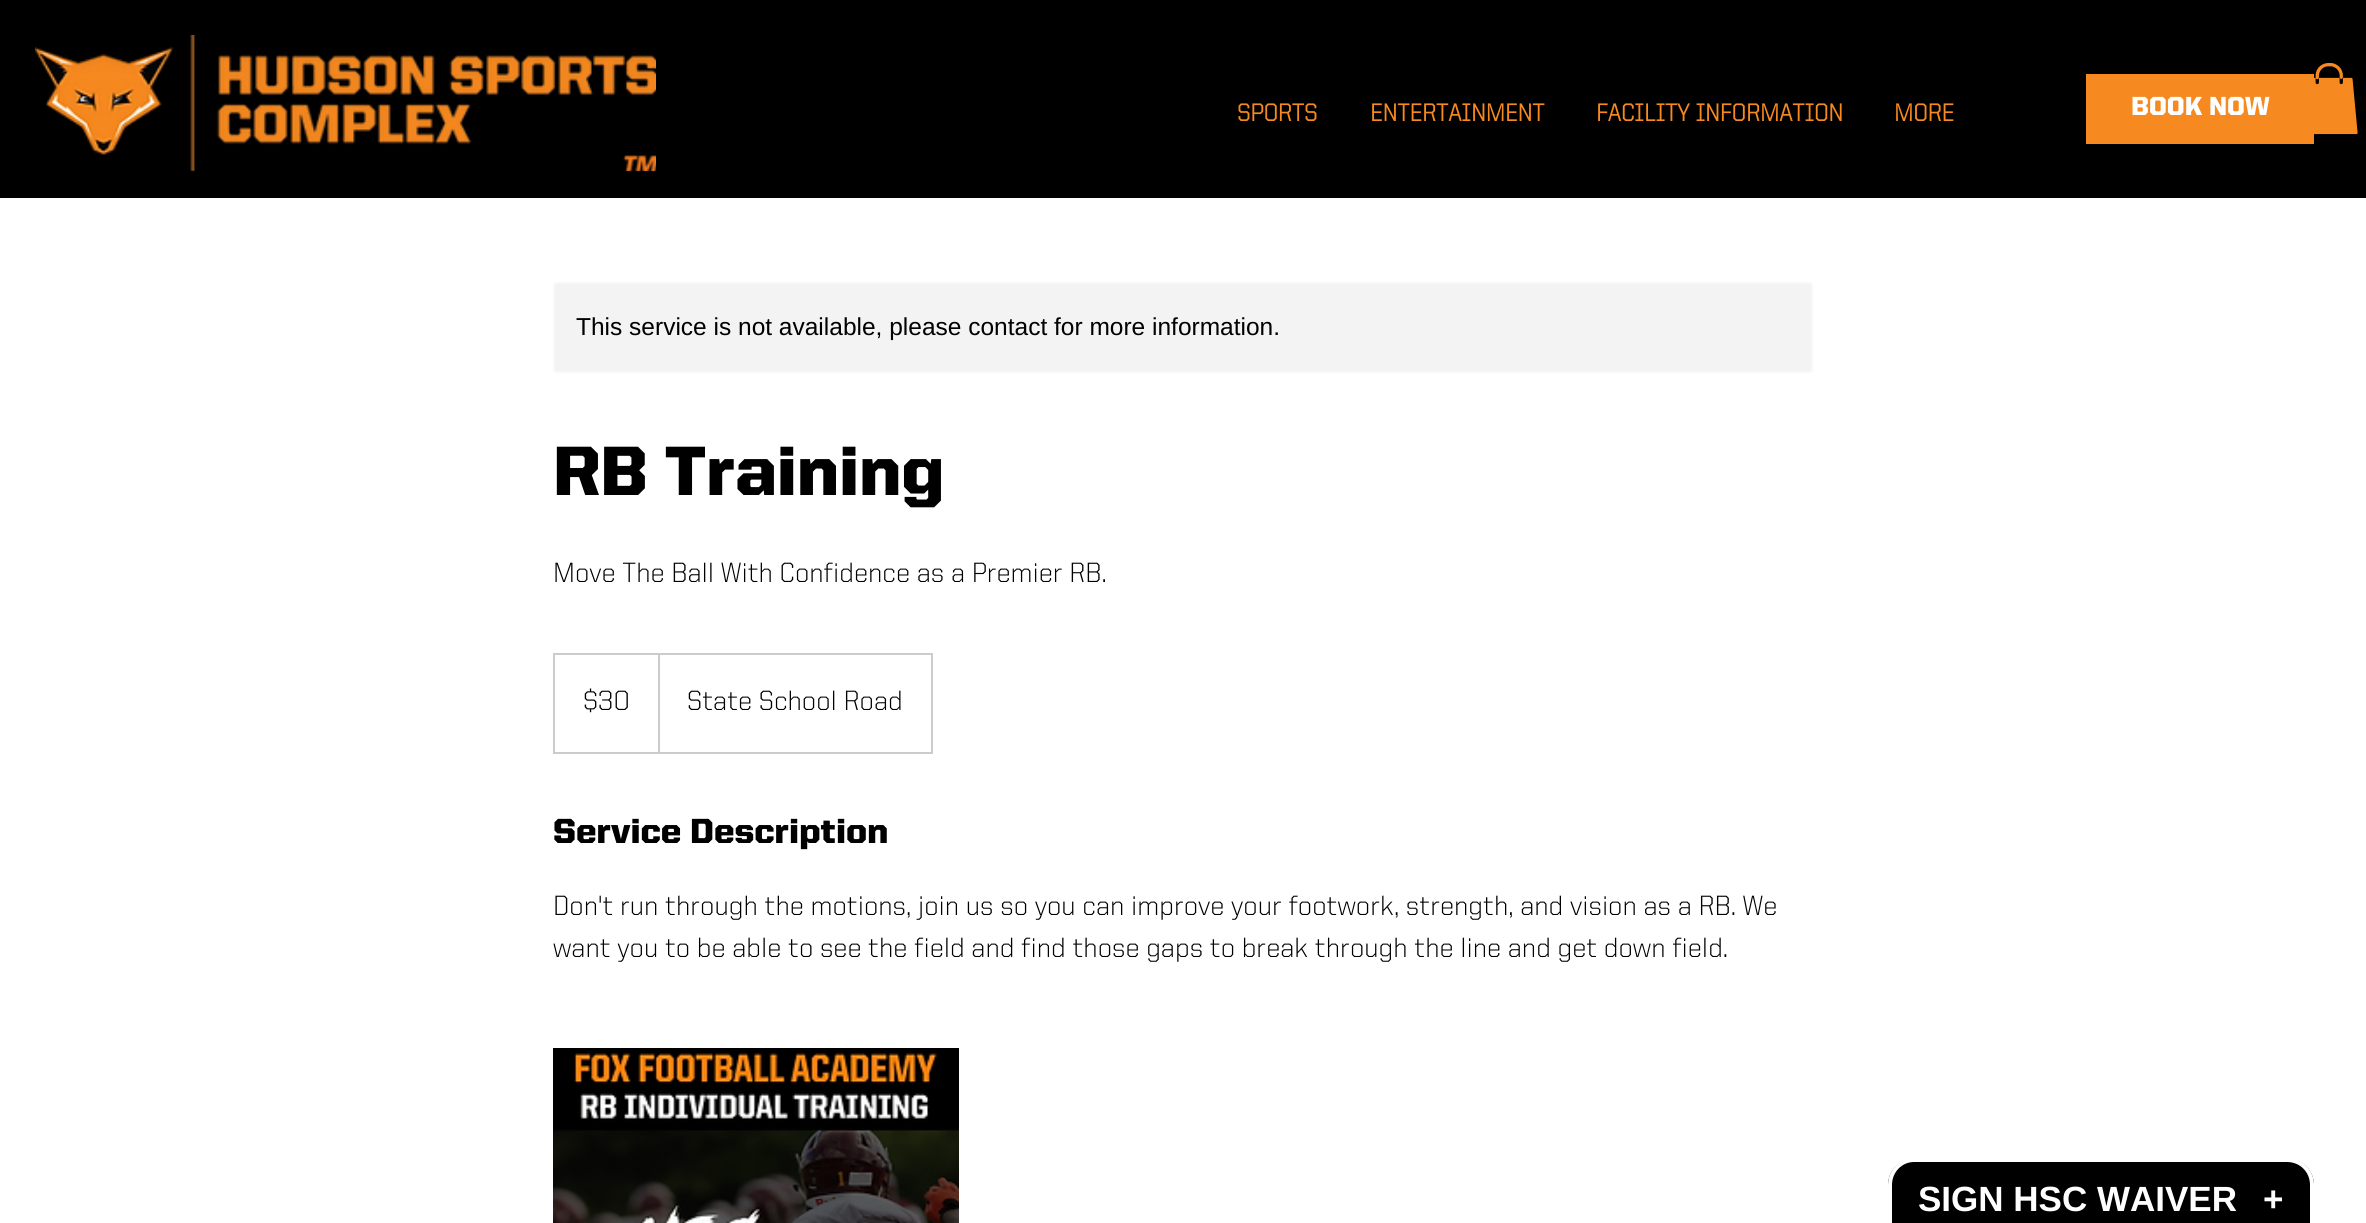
#include <cairo.h>
#include <math.h>
#include <stddef.h>

static cairo_t *c;
static void C(unsigned color){cairo_set_source_rgb(c, (color >> 16) / 255.0, (color >> 8 & 255) / 255.0, (color & 255) / 255.0);}
static void F(const char *family, double size, int italic, int bold){cairo_select_font_face(c, family, italic ? CAIRO_FONT_SLANT_ITALIC : CAIRO_FONT_SLANT_NORMAL,bold ? CAIRO_FONT_WEIGHT_BOLD : CAIRO_FONT_WEIGHT_NORMAL);cairo_set_font_size(c, size);}
static void T(double x, double y, const char *s){cairo_move_to(c, x, y);cairo_show_text(c, s);}
static void R(double x, double y, double w, double h){cairo_rectangle(c, x, y, w, h);cairo_fill(c);}
static void Q(double x, double y, double w, double h, double r){cairo_new_sub_path(c);cairo_arc(c, x + w - r, y + h - r, r, 0, M_PI / 2);cairo_arc(c, x + r, y + h - r, r, M_PI / 2, M_PI);cairo_arc(c, x + r, y + r, r, M_PI, 1.5 * M_PI);cairo_arc(c, x + w - r, y + r, r, 1.5 * M_PI, 2 * M_PI);cairo_close_path(c);}
static void I(const char *path, double x, double y, double w, double h){cairo_surface_t *image = cairo_image_surface_create_from_png(path);cairo_save(c);cairo_set_source_surface(c, image, x, y);cairo_rectangle(c, x, y, w, h);cairo_fill(c);cairo_restore(c);cairo_surface_destroy(image);}
int main(void) {
cairo_surface_t *surface = cairo_image_surface_create(CAIRO_FORMAT_RGB24, 2366, 1223);
c = cairo_create(surface);
cairo_font_options_t *options = cairo_font_options_create();
cairo_font_options_set_hint_metrics(options, CAIRO_HINT_METRICS_OFF);
cairo_font_options_set_hint_style(options, CAIRO_HINT_STYLE_NONE);
cairo_set_font_options(c, options);
cairo_set_miter_limit(c, 4);
C(0xffffff);
cairo_paint(c);
C(0x000000);
R(0,0,2366,198);
I("1.png",2314,63,44,72);
I("2.png",35,35,621,137);
F("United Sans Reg",24.5,0,1);
C(0xf68920);
T(1237,121,"SPORTS");
T(1370,121,"ENTERTAINMENT");
T(1596,121,"FACILITY INFORMATION");
T(1894,121,"MORE");
R(2086,74,228,70);
F("United Sans Reg Black",26.25,0,0);
C(0xffffff);
T(2131,115,"BOOK NOW");
C(0xf3f3f3);
Q(553,282,1260,91,4);
cairo_fill(c);
Q(554,283,1258,89,3);
cairo_set_source_rgba(c,1,1,1,0.4);
cairo_stroke(c);
F("Liberation Sans",24.5,0,0);
C(0x000000);
T(576,335,"This service is not available, please contact for more information.");
F("United Sans Reg Black",70,0,0);
T(553,495,"RB Training");
F("United Sans Reg Light",28,0,0);
T(553,582,"Move The Ball With Confidence as a Premier RB.");
cairo_rectangle(c,554,654,378,99);
C(0xcccccc);
cairo_stroke(c);
C(0x000000);
T(583,710,"$30");
cairo_save(c);
cairo_rectangle(c,555,655,376,98);
cairo_clip(c);
C(0xcccccc);
cairo_new_path(c);
cairo_move_to(c,658,752);
cairo_line_to(c,658,653);
cairo_line_to(c,660,654);
cairo_line_to(c,660,752);
cairo_close_path(c);
cairo_fill(c);
cairo_restore(c);
T(687,710,"State School Road");
F("United Sans Reg Black",35,0,0);
T(553,843,"Service Description");
F("United Sans Reg Light",28,0,0);
T(553,915,"Don't run through the motions, join us so you can improve your footwork, strength, and vision as a RB. We");
T(553,957,"want you to be able to see the field and find those gaps to break through the line and get down field.");
I("3.png",553,1048,406,175);
I("4.png",573,1053,386,170);
cairo_new_path(c);
cairo_move_to(c,1914,1159);
cairo_line_to(c,2288,1159);
cairo_curve_to(c,2302.5,1159,2314,1170.5,2314,1185);
cairo_line_to(c,2314,1223);
cairo_line_to(c,1888,1223);
cairo_line_to(c,1888,1185);
cairo_curve_to(c,1888,1170.5,1899.5,1159,1914,1159);
cairo_close_path(c);
cairo_fill(c);
C(0xffffff);
cairo_set_fill_rule(c,CAIRO_FILL_RULE_EVEN_ODD);
cairo_new_path(c);
cairo_move_to(c,1914,1158);
cairo_line_to(c,2287,1158);
cairo_curve_to(c,2302,1158,2314,1170,2314,1185);
cairo_line_to(c,2314,1223);
cairo_line_to(c,1888,1223);
cairo_line_to(c,1888,1185);
cairo_curve_to(c,1888,1170,1900,1158,1914,1158);
cairo_close_path(c);
cairo_move_to(c,1914,1162);
cairo_line_to(c,2287,1162);
cairo_curve_to(c,2300,1162,2310,1172,2310,1185);
cairo_line_to(c,2310,1223);
cairo_line_to(c,1892,1223);
cairo_line_to(c,1892,1185);
cairo_curve_to(c,1892,1172,1902,1162,1914,1162);
cairo_close_path(c);
cairo_fill(c);
F("Liberation Sans",35,0,1);
T(1918,1211,"SIGN HSC WAIVER");
T(2263,1211,"+");
cairo_surface_write_to_png(surface, "o.png");
cairo_font_options_destroy(options);
cairo_destroy(c);
cairo_surface_destroy(surface);
return 0;
}
